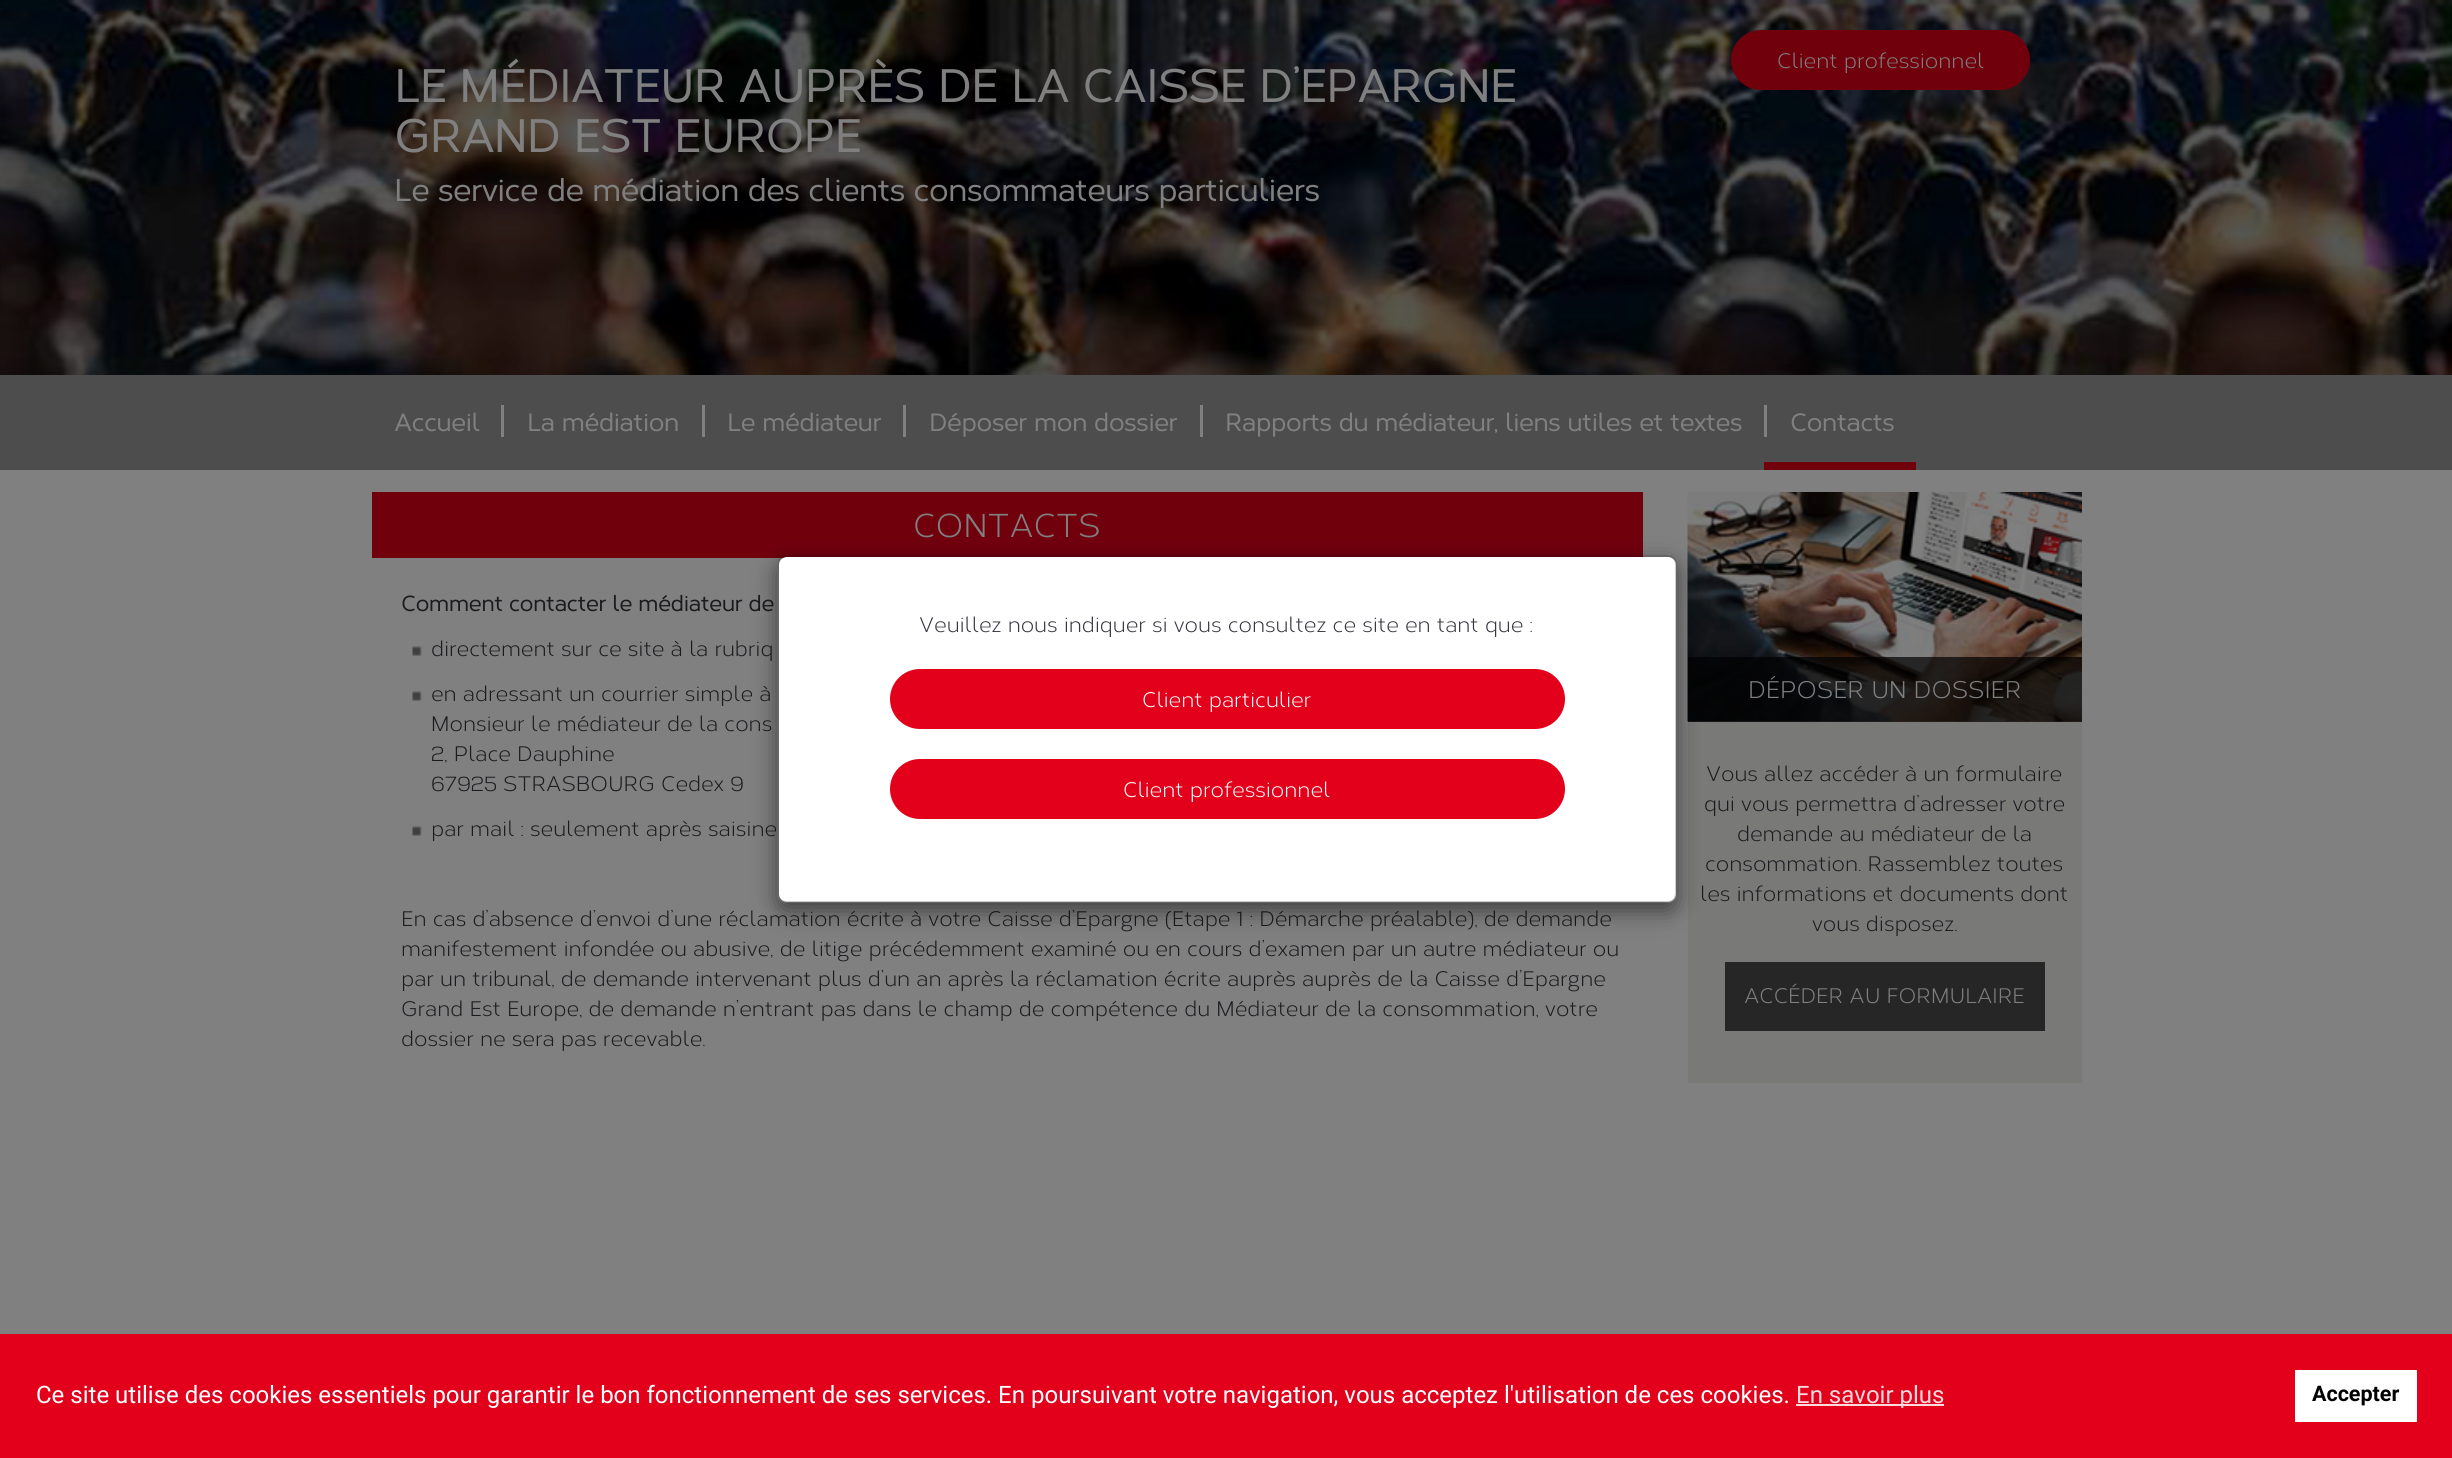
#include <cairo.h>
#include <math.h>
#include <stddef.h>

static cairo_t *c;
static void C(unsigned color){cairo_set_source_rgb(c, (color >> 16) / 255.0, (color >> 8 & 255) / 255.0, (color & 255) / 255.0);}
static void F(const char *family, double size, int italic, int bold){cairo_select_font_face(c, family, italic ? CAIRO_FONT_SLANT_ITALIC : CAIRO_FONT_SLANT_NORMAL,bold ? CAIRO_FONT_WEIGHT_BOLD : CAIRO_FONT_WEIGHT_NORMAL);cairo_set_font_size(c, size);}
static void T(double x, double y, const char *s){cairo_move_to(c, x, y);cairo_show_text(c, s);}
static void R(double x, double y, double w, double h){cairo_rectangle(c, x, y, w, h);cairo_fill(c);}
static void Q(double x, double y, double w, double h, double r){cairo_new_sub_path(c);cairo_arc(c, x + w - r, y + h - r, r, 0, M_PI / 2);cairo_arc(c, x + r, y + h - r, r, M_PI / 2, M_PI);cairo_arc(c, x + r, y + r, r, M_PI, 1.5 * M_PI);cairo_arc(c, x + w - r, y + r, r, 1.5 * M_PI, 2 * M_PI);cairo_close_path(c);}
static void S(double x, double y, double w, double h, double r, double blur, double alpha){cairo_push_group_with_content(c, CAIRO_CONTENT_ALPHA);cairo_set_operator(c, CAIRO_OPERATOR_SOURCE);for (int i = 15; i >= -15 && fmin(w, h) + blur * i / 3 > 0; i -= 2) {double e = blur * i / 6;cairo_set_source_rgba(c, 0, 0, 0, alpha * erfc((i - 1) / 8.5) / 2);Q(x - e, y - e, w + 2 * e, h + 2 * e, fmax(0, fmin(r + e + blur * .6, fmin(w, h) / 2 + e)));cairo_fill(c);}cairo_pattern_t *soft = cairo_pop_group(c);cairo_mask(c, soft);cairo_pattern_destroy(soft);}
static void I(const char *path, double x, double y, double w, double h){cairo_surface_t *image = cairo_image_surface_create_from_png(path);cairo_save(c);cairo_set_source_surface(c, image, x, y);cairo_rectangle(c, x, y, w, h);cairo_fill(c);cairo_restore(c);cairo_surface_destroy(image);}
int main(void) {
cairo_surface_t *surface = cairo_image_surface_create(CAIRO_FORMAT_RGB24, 2452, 1458);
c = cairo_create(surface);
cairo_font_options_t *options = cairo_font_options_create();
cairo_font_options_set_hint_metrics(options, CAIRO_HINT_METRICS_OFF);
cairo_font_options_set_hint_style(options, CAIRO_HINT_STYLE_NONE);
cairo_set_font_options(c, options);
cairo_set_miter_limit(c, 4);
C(0x808080);
cairo_paint(c);
I("1.png",0,0,2452,375);
F("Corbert",45,0,1);
C(0x808080);
T(394,102,"LE MÉDIATEUR AUPRÈS DE LA CAISSE D’EPARGNE");
T(394,152,"GRAND EST EUROPE");
F("Corbert",30,0,1);
T(394,201,"Le service de médiation des clients consommateurs particuliers");
C(0x71000d);
Q(1731,30,299,60,30);
cairo_fill(c);
F("Corbert",21,0,0);
C(0x808080);
T(1777,68,"Client professionnel");
C(0x4d4d4d);
R(0,375,2452,95);
F("Corbert",24,0,1);
C(0x808080);
T(394,431,"Accueil");
T(527,431,"La médiation");
R(501,405,3,32);
T(727,431,"Le médiateur");
R(702,405,3,32);
T(929,431,"Déposer mon dossier");
R(903,405,3,32);
T(1225,431,"Rapports du médiateur, liens utiles et textes");
R(1200,405,3,32);
C(0x71000d);
R(1764,462,152,8);
C(0x808080);
T(1790,431,"Contacts");
R(1764,405,3,32);
C(0x71000d);
R(372,492,1271,66);
F("Corbert",33,0,0);
C(0x808080);
T(913,537,"CONTACTS");
F("Corbert",21,0,1);
C(0x1b1b1f);
T(401,611,"Comment contacter le médiateur de");
I("2.png",412,646,10,10);
F("Corbert",21,0,0);
T(431,656,"directement sur ce site à la rubriq");
I("2.png",412,691,10,10);
T(431,701,"en adressant un courrier simple à");
T(431,731,"Monsieur le médiateur de la cons");
T(431,761,"2, Place Dauphine");
T(431,791,"67925 STRASBOURG Cedex 9");
I("2.png",412,826,10,10);
T(431,836,"par mail : seulement après saisine");
T(401,926,"En cas d’absence d’envoi d’une réclamation écrite à votre Caisse d’Epargne (Etape 1 : Démarche préalable), de demande");
T(401,956,"manifestement infondée ou abusive, de litige précédemment examiné ou en cours d’examen par un autre médiateur ou");
T(401,986,"par un tribunal, de demande intervenant plus d’un an après la réclamation écrite auprès auprès de la Caisse d’Epargne");
T(401,1016,"Grand Est Europe, de demande n’entrant pas dans le champ de compétence du Médiateur de la consommation, votre");
T(401,1046,"dossier ne sera pas recevable.");
I("3.png",1687,492,395,230);
cairo_set_source_rgba(c,0,0,0,0.7);
R(1688,657,394,65);
F("Corbert",24,0,0);
C(0x808080);
T(1748,698,"DÉPOSER UN DOSSIER");
C(0x797978);
R(1688,722,394,361);
F("Corbert",21,0,0);
C(0x1b1b1f);
T(1706,781,"Vous allez accéder à un formulaire");
T(1704,811,"qui vous permettra d’adresser votre");
T(1737,841,"demande au médiateur de la");
T(1705,871,"consommation. Rassemblez toutes");
T(1700,901,"les informations et documents dont");
T(1812,931,"vous disposez.");
C(0x262626);
R(1725,962,320,69);
C(0x808080);
T(1744,1003,"ACCÉDER AU FORMULAIRE");
cairo_save(c);
cairo_set_fill_rule(c,CAIRO_FILL_RULE_EVEN_ODD);
cairo_new_path(c);
cairo_move_to(c,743,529);
cairo_line_to(c,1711,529);
cairo_line_to(c,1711,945);
cairo_line_to(c,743,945);
cairo_close_path(c);
cairo_move_to(c,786,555);
cairo_line_to(c,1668,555);
cairo_curve_to(c,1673,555,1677,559,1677,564);
cairo_line_to(c,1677,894);
cairo_curve_to(c,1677,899,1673,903,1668,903);
cairo_line_to(c,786,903);
cairo_curve_to(c,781,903,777,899,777,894);
cairo_line_to(c,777,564);
cairo_curve_to(c,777,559,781,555,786,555);
cairo_close_path(c);
cairo_clip(c);
C(0x000000);
S(777,563,900,348,9,11,.5);
cairo_restore(c);
C(0xffffff);
Q(779,557,897,345,8);
cairo_fill(c);
Q(778,556,898,346,8);
cairo_set_source_rgba(c,0,0,0,0.2);
cairo_stroke(c);
C(0x36363e);
T(919,632,"Veuillez nous indiquer si vous consultez ce site en tant que :");
C(0xe2001a);
Q(890,669,675,60,30);
cairo_fill(c);
C(0xffffff);
T(1142,707,"Client particulier");
C(0xe2001a);
Q(890,759,675,60,30);
cairo_fill(c);
C(0xffffff);
T(1123,797,"Client professionnel");
C(0xe2001a);
R(0,1334,2452,124);
F("Roboto",24,0,0);
C(0xffffff);
T(36,1403,"Ce site utilise des cookies essentiels pour garantir le bon fonctionnement de ses services. En poursuivant votre navigation, vous acceptez l'utilisation de ces cookies.");
C(0xfbd9dd);
R(1796,1404,148,2);
T(1796,1403,"En savoir plus");
C(0xffffff);
R(2295,1370,122,52);
F("Roboto",21.5,0,1);
C(0x000000);
T(2312,1401,"Accepter");
cairo_surface_write_to_png(surface, "o.png");
cairo_font_options_destroy(options);
cairo_destroy(c);
cairo_surface_destroy(surface);
return 0;
}
